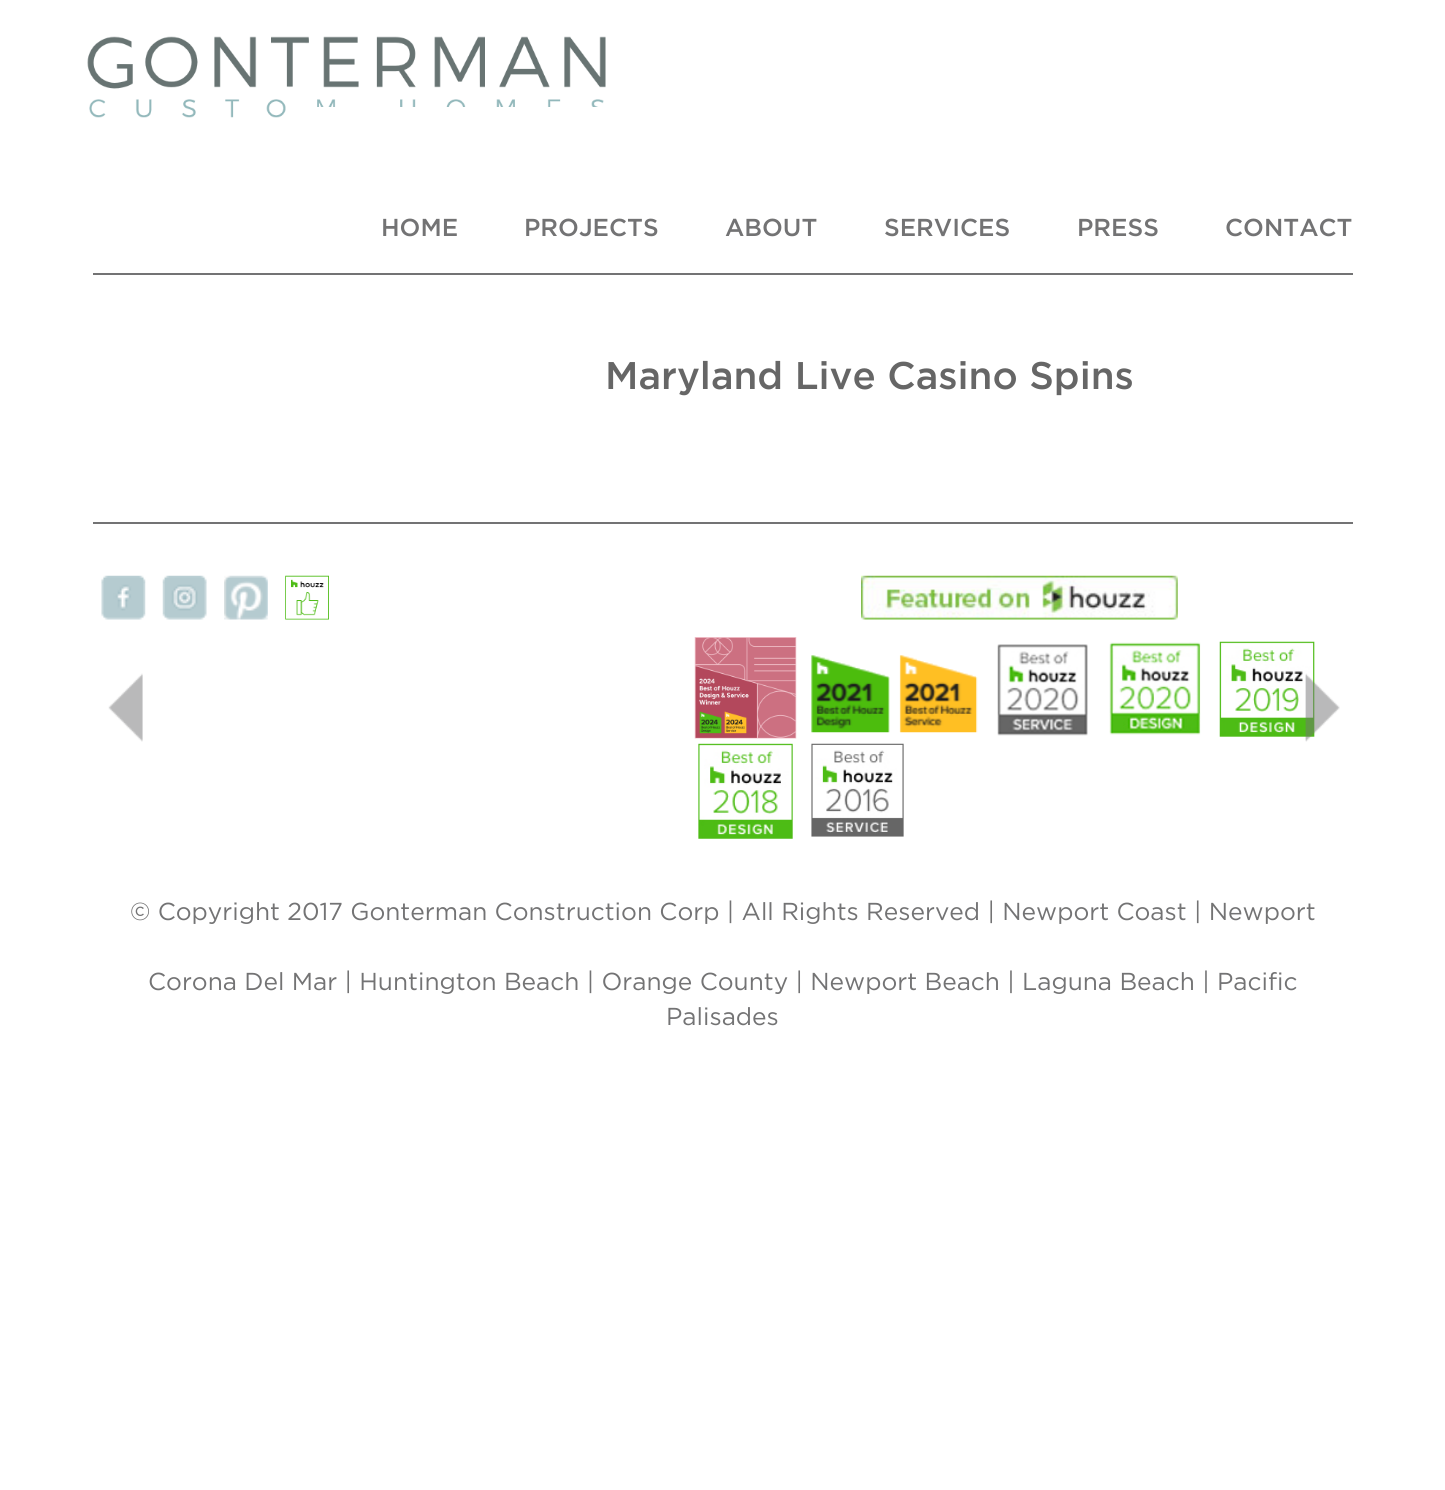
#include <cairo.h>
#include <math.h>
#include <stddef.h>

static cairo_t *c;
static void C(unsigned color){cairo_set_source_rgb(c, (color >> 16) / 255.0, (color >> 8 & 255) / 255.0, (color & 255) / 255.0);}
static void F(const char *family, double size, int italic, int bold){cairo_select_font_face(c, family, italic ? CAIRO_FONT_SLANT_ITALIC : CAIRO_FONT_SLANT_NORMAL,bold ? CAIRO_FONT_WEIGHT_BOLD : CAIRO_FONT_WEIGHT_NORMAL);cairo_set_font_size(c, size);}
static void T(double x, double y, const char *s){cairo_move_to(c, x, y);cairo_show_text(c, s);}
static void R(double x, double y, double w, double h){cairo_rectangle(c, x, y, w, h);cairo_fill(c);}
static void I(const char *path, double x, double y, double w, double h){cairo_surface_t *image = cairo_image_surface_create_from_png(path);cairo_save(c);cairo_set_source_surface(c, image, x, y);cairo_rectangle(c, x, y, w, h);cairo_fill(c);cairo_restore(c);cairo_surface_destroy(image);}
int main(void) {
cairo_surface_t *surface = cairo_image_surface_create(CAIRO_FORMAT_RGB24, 1445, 1490);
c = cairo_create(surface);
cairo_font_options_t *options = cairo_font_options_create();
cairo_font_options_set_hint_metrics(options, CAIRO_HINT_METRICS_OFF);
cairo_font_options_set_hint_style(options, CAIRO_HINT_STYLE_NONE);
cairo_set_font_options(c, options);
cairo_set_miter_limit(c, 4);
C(0xffffff);
cairo_paint(c);
I("1.png",87,36,519,82);
C(0xffffff);
R(317,107,287,11);
F("Gotham Medium",24.5,0,0);
C(0x737374);
T(381,236,"HOME");
T(524,236,"PROJECTS");
T(725,236,"ABOUT");
T(884,236,"SERVICES");
T(1077,236,"PRESS");
T(1225,236,"CONTACT");
R(93,273,1260,2);
F("Gotham Medium",38.5,0,0);
C(0x666666);
T(605,389,"Maryland Live Casino Spins");
I("2.png",108,673,35,69);
I("13.png",1219,641,96,96);
I("3.png",1305,673,35,69);
C(0x737374);
R(93,522,1260,2);
I("4.png",101,575,45,45);
I("5.png",162,575,45,45);
I("6.png",224,575,44,45);
I("7.png",285,575,44,45);
I("8.png",861,575,317,45);
I("9.png",694,637,103,102);
I("10.png",811,655,167,78);
I("11.png",997,644,91,92);
I("12.png",1109,642,92,93);
I("14.png",698,743,95,96);
I("15.png",811,743,93,94);
F("Gotham",24.5,0,0);
T(130,920,"© Copyright 2017 Gonterman Construction Corp | All Rights Reserved | Newport Coast | Newport");
T(148,990,"Corona Del Mar | Huntington Beach | Orange County | Newport Beach | Laguna Beach | Pacific");
T(666,1025,"Palisades");
cairo_surface_write_to_png(surface, "o.png");
cairo_font_options_destroy(options);
cairo_destroy(c);
cairo_surface_destroy(surface);
return 0;
}
